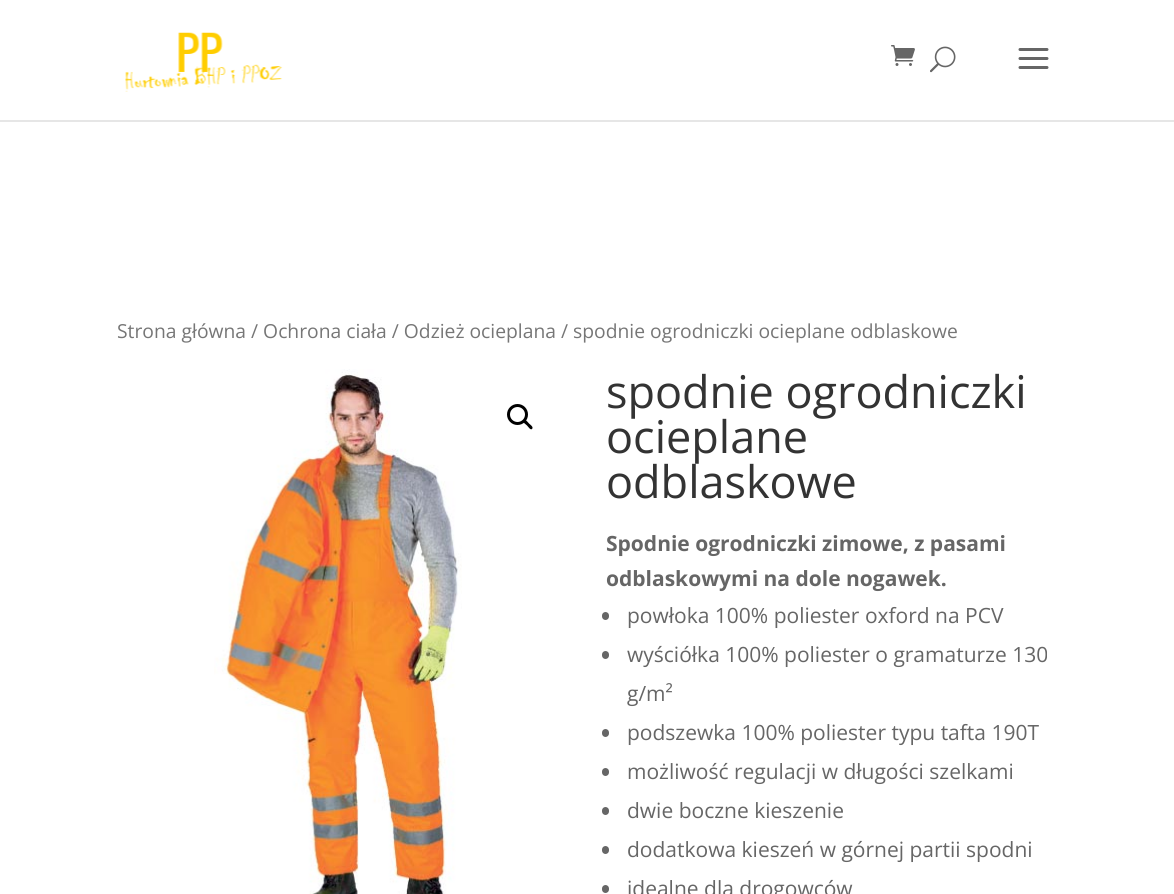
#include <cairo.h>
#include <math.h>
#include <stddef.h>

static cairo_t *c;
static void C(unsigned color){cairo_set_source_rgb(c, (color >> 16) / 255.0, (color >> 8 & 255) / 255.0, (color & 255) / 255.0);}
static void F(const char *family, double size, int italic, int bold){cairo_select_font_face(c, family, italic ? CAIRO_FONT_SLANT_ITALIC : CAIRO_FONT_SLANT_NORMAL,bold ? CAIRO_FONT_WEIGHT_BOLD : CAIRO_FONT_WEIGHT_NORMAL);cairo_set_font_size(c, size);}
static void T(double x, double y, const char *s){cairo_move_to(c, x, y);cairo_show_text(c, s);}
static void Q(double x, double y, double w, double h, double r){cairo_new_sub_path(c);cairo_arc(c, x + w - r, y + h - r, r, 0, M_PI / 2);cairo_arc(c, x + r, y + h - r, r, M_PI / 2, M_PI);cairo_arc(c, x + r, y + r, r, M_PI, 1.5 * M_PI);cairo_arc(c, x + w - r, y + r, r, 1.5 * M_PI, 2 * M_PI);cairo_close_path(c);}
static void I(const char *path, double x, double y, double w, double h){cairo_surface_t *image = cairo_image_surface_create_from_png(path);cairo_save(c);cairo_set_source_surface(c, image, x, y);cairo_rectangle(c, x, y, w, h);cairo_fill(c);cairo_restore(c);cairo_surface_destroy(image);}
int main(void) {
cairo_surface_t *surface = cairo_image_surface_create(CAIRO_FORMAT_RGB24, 1174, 894);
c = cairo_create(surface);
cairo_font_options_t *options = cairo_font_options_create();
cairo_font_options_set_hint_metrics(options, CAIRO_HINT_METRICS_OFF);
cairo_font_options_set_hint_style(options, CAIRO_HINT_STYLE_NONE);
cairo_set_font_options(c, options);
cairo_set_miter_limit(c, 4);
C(0xffffff);
cairo_paint(c);
C(0xe6e6e6);
cairo_new_path(c);
cairo_move_to(c,0,120);
cairo_line_to(c,0,122);
cairo_line_to(c,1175,122);
cairo_line_to(c,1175,2);
cairo_line_to(c,1174,2);
cairo_line_to(c,1174,120);
cairo_close_path(c);
cairo_fill(c);
I("1.png",125,32,158,60);
I("2.png",891,45,24,21);
I("3.png",930,46,26,27);
I("4.png",1018,48,31,21);
F("Open Sans",19.3,0,0);
C(0x767676);
T(117,338,"Strona główna / Ochrona ciała / Odzież ocieplana / spodnie ogrodniczki ocieplane odblaskowe");
I("5.png",214,369,248,525);
cairo_arc(c,517.5,414.5,9,0,2 * M_PI);
C(0x000000);
cairo_set_line_width(c,3);
cairo_stroke(c);
cairo_new_path(c);
cairo_move_to(c,523.5,420.5);
cairo_curve_to(c,525.5,418.5,528,422.5,529,423.5);
cairo_curve_to(c,530,424.5,534,427,532,429);
cairo_curve_to(c,530.5,430.5,528,426.5,527,425.5);
cairo_curve_to(c,526,424.5,522,422,523.5,420.5);
cairo_close_path(c);
cairo_fill(c);
F("Open Sans",45,0,0);
C(0x333333);
T(606,408,"spodnie ogrodniczki");
T(606,453,"ocieplane");
T(606,498,"odblaskowe");
F("Open Sans",21,0,1);
C(0x666666);
T(606,551,"Spodnie ogrodniczki zimowe, z pasami");
T(606,586,"odblaskowymi na dole nogawek.");
Q(602,612,7,8,3.5);
cairo_fill(c);
F("Open Sans",21,0,0);
T(627,623,"powłoka 100% poliester oxford na PCV");
Q(602,651,7,8,3.5);
cairo_fill(c);
T(627,662,"wyściółka 100% poliester o gramaturze 130");
T(627,701,"g/m²");
Q(602,729,7,8,3.5);
cairo_fill(c);
T(627,740,"podszewka 100% poliester typu tafta 190T");
Q(602,768,7,8,3.5);
cairo_fill(c);
T(627,779,"możliwość regulacji w długości szelkami");
Q(602,807,7,8,3.5);
cairo_fill(c);
T(627,818,"dwie boczne kieszenie");
Q(602,846,7,8,3.5);
cairo_fill(c);
T(627,857,"dodatkowa kieszeń w górnej partii spodni");
Q(602,885,7,8,3.5);
cairo_fill(c);
T(627,896,"idealne dla drogowców");
cairo_surface_write_to_png(surface, "o.png");
cairo_font_options_destroy(options);
cairo_destroy(c);
cairo_surface_destroy(surface);
return 0;
}
